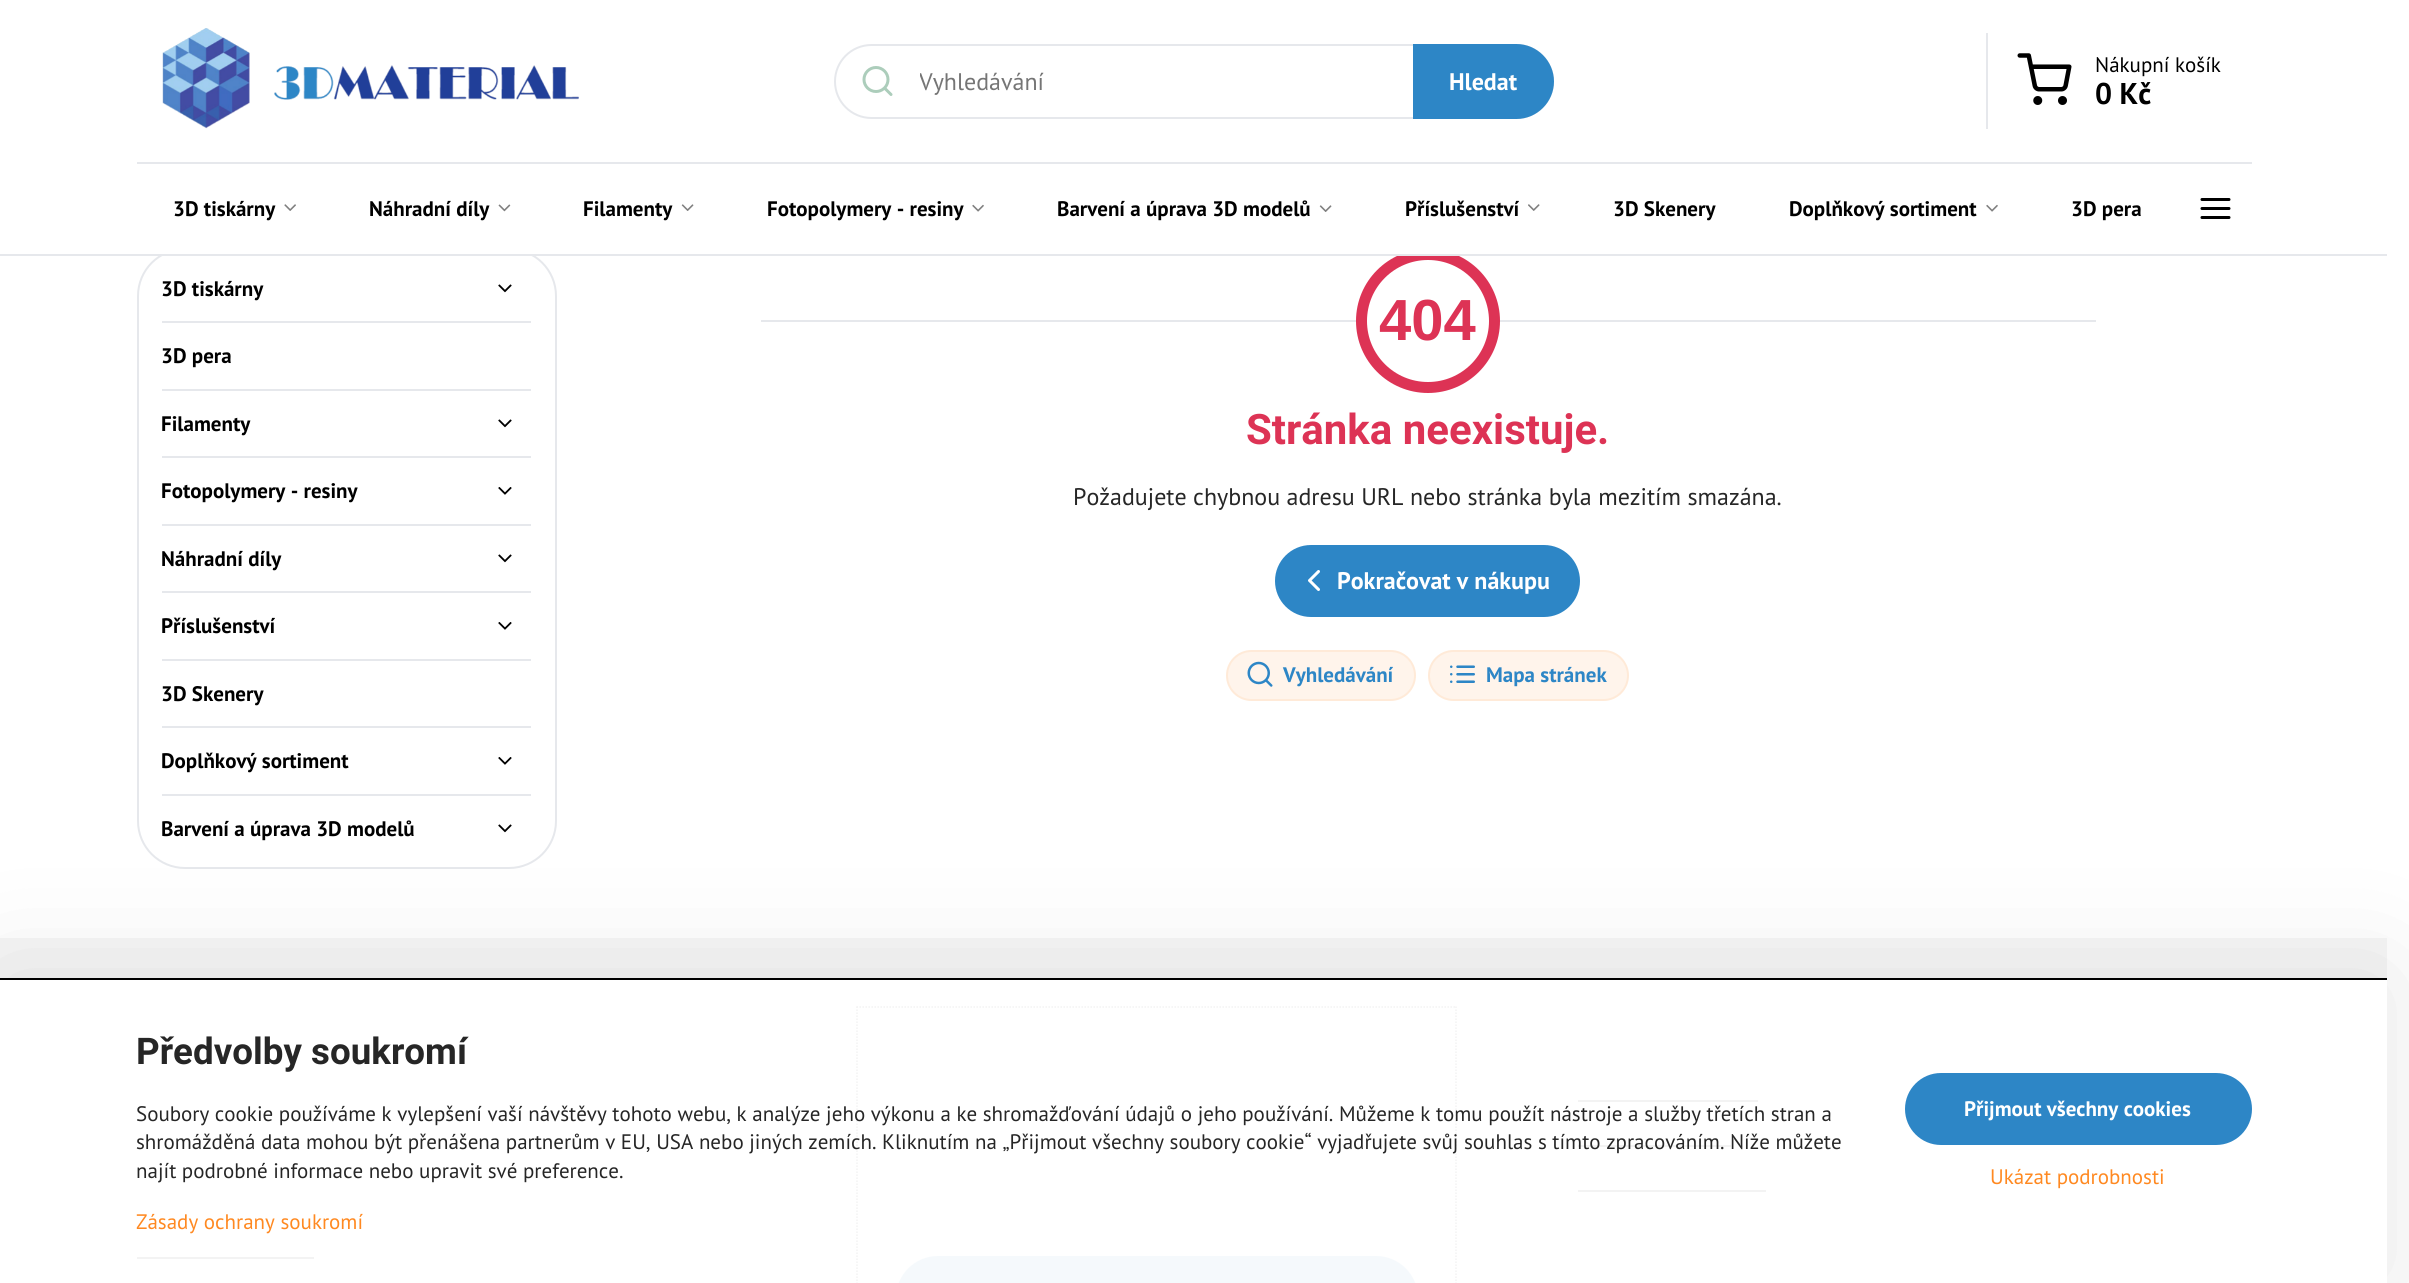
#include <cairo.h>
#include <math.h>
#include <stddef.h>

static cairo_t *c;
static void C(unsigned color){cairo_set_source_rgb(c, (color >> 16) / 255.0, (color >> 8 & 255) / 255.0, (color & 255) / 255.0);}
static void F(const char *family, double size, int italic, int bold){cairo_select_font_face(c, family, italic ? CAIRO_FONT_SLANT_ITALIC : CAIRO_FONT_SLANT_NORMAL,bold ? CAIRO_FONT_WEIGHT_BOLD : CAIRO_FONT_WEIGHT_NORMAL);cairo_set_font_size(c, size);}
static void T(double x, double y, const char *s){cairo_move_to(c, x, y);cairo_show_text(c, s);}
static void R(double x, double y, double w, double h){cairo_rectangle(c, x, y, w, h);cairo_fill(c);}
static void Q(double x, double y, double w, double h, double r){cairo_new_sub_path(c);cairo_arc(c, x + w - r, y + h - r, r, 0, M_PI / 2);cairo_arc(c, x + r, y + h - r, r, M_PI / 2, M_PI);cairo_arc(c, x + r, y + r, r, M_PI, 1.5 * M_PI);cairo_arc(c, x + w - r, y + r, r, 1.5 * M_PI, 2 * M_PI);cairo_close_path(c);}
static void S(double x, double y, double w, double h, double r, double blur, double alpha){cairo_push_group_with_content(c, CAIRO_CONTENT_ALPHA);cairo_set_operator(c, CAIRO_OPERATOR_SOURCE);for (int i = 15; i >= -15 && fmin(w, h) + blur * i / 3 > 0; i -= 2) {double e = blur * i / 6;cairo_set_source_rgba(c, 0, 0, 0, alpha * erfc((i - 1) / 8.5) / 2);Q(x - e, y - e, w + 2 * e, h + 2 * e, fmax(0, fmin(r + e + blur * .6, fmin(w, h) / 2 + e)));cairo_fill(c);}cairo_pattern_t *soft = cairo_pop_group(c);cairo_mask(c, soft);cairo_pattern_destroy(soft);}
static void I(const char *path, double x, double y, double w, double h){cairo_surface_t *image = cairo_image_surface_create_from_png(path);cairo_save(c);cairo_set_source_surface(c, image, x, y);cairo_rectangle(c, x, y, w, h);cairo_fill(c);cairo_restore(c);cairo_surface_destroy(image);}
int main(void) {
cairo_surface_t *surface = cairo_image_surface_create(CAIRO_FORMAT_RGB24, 2409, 1283);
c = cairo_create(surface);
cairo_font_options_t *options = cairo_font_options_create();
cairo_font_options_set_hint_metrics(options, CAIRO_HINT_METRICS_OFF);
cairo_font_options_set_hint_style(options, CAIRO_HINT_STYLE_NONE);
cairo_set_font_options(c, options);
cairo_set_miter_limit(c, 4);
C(0xffffff);
cairo_paint(c);
Q(138,249,418,619,47);
C(0xe6e8ec);
cairo_stroke(c);
R(761,320,1335,2);
C(0xffffff);
cairo_arc(c,1428,321,66.5,0,2 * M_PI);
cairo_fill_preserve(c);
C(0xdd3355);
cairo_set_line_width(c,11);
cairo_stroke(c);
C(0xffffff);
R(162,248,1293,6);
I("1.png",162,28,417,101);
Q(835,45,718,73,36.5);
C(0xe6e8ec);
cairo_set_line_width(c,2);
cairo_stroke(c);
I("2.png",862,66,31,30);
cairo_save(c);
cairo_rectangle(c,920,66,475,30);
cairo_clip(c);
F("PT Sans",24,0,0);
C(0x757575);
T(919,90,"Vyhledávání");
cairo_restore(c);
C(0x2d86c6);
cairo_new_path(c);
cairo_move_to(c,1413,44);
cairo_line_to(c,1516.5,44);
cairo_curve_to(c,1537,44,1554,61,1554,81.5);
cairo_curve_to(c,1554,102,1537,119,1516.5,119);
cairo_line_to(c,1413,119);
cairo_close_path(c);
cairo_fill(c);
F("PT Sans",24,0,1);
C(0xffffff);
T(1449,90,"Hledat");
C(0xe6e8ec);
R(1986,33,2,96);
I("3.png",2017,53,55,52);
F("PT Sans",21,0,0);
C(0x000000);
T(2095,72,"Nákupní košík");
F("PT Sans",30,0,1);
T(2095,104,"0 Kč");
C(0xe6e8ec);
R(0,254,2387,2);
R(137,162,2115,2);
F("PT Sans",21,0,1);
C(0x000000);
T(173,216,"3D tiskárny");
I("4.png",284,204,12,7);
T(369,216,"Náhradní díly");
I("5.png",498,204,13,8);
T(583,216,"Filamenty");
I("6.png",681,204,13,7);
T(767,216,"Fotopolymery - resiny");
I("7.png",972,204,12,8);
T(1057,216,"Barvení a úprava 3D modelů");
I("8.png",1319,205,13,7);
T(1405,216,"Příslušenství");
I("9.png",1528,204,12,7);
T(1613,216,"3D Skenery");
T(1789,216,"Doplňkový sortiment");
I("10.png",1986,204,12,8);
T(2071,216,"3D pera");
I("11.png",2200,198,31,21);
C(0xe6e8ec);
R(162,321,369,2);
C(0x000000);
T(161,296,"3D tiskárny");
I("12.png",498,284,14,9);
C(0xe6e8ec);
R(162,389,369,2);
C(0x000000);
T(161,363,"3D pera");
C(0xe6e8ec);
R(162,456,369,2);
C(0x000000);
T(161,431,"Filamenty");
I("12.png",498,419,14,9);
C(0xe6e8ec);
R(162,524,369,2);
C(0x000000);
T(161,498,"Fotopolymery - resiny");
I("13.png",498,487,14,8);
C(0xe6e8ec);
R(162,591,369,2);
C(0x000000);
T(161,566,"Náhradní díly");
I("12.png",498,554,14,9);
C(0xe6e8ec);
R(162,659,369,2);
C(0x000000);
T(161,633,"Příslušenství");
I("13.png",498,622,14,8);
C(0xe6e8ec);
R(162,726,369,2);
C(0x000000);
T(161,701,"3D Skenery");
C(0xe6e8ec);
R(162,794,369,2);
C(0x000000);
T(161,768,"Doplňkový sortiment");
I("13.png",498,757,14,8);
T(161,836,"Barvení a úprava 3D modelů");
I("12.png",498,824,14,9);
F("Liberation Sans",58,0,1);
C(0xdd3355);
T(1379,340,"404");
F("Roboto",42,0,1);
T(1246,444,"Stránka neexistuje.");
F("PT Sans",24,0,0);
C(0x262626);
T(1073,505,"Požadujete chybnou adresu URL nebo stránka byla mezitím smazána.");
C(0x2d86c6);
Q(1275,545,305,72,36);
cairo_fill(c);
I("14.png",1308,570,12,21);
F("PT Sans",24,0,1);
C(0xffffff);
T(1337,589,"Pokračovat v nákupu");
C(0xfff4eb);
Q(1226,650,190,51,25.5);
cairo_fill(c);
Q(1227,651,188,49,24.5);
cairo_set_source_rgba(c,1,0.537,0.129,0.09);
cairo_stroke(c);
I("15.png",1247,661,26,26);
F("PT Sans",21,0,1);
C(0x2d86c6);
T(1283,682,"Vyhledávání");
C(0xfff4eb);
Q(1428,650,201,51,25.5);
cairo_fill(c);
Q(1429,651,199,49,24.5);
cairo_set_source_rgba(c,1,0.537,0.129,0.09);
cairo_stroke(c);
I("16.png",1450,665,25,18);
C(0x2d86c6);
T(1486,682,"Mapa stránek");
C(0xf6f6f6);
R(0,938,2387,345);
cairo_new_path(c);
cairo_move_to(c,856.5,1007);
cairo_line_to(c,1456.5,1007);
C(0x0f0f0f);
cairo_set_line_width(c,1.5);
cairo_set_dash(c,(double[]){1.5,1.5},2,0);
cairo_stroke(c);
cairo_new_path(c);
cairo_move_to(c,1456,1006.5);
cairo_line_to(c,1456,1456.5);
cairo_stroke(c);
cairo_new_path(c);
cairo_move_to(c,857,1006.5);
cairo_line_to(c,857,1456.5);
cairo_stroke(c);
C(0x2d86c6);
Q(896,1256,522,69,42);
cairo_fill(c);
C(0x000000);
R(1578,1100,180,2);
R(1578,1145,153,2);
R(1578,1190,188,2);
R(137,1257,177,2);
cairo_save(c);
cairo_set_fill_rule(c,CAIRO_FILL_RULE_EVEN_ODD);
cairo_new_path(c);
cairo_move_to(c,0,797);
cairo_line_to(c,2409,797);
cairo_line_to(c,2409,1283);
cairo_line_to(c,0,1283);
cairo_close_path(c);
cairo_move_to(c,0,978);
cairo_line_to(c,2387,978);
cairo_line_to(c,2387,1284);
cairo_line_to(c,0,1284);
cairo_close_path(c);
cairo_clip(c);
C(0x000000);
S(0,978,2387,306,0,60,.1);
cairo_restore(c);
cairo_set_source_rgba(c,1,1,1,0.95);
R(0,980,2387,303);
C(0x000000);
R(0,978,2387,2);
F("Roboto",36.75,0,1);
C(0x262626);
T(136,1064,"Předvolby soukromí");
F("PT Sans",21,0,0);
T(136,1121,"Soubory cookie používáme k vylepšení vaší návštěvy tohoto webu, k analýze jeho výkonu a ke shromažďování údajů o jeho používání. Můžeme k tomu použít nástroje a služby třetích stran a");
T(136,1149,"shromážděná data mohou být přenášena partnerům v EU, USA nebo jiných zemích. Kliknutím na „Přijmout všechny soubory cookie“ vyjadřujete svůj souhlas s tímto zpracováním. Níže můžete");
T(136,1178,"najít podrobné informace nebo upravit své preference.");
C(0xff8921);
T(136,1229,"Zásady ochrany soukromí");
C(0x2d86c6);
Q(1905,1073,347,72,36);
cairo_fill(c);
F("PT Sans",21,0,1);
C(0xffffff);
T(1964,1116,"Přijmout všechny cookies");
F("PT Sans",21,0,0);
C(0xff8921);
T(1990,1184,"Ukázat podrobnosti");
cairo_surface_write_to_png(surface, "o.png");
cairo_font_options_destroy(options);
cairo_destroy(c);
cairo_surface_destroy(surface);
return 0;
}
